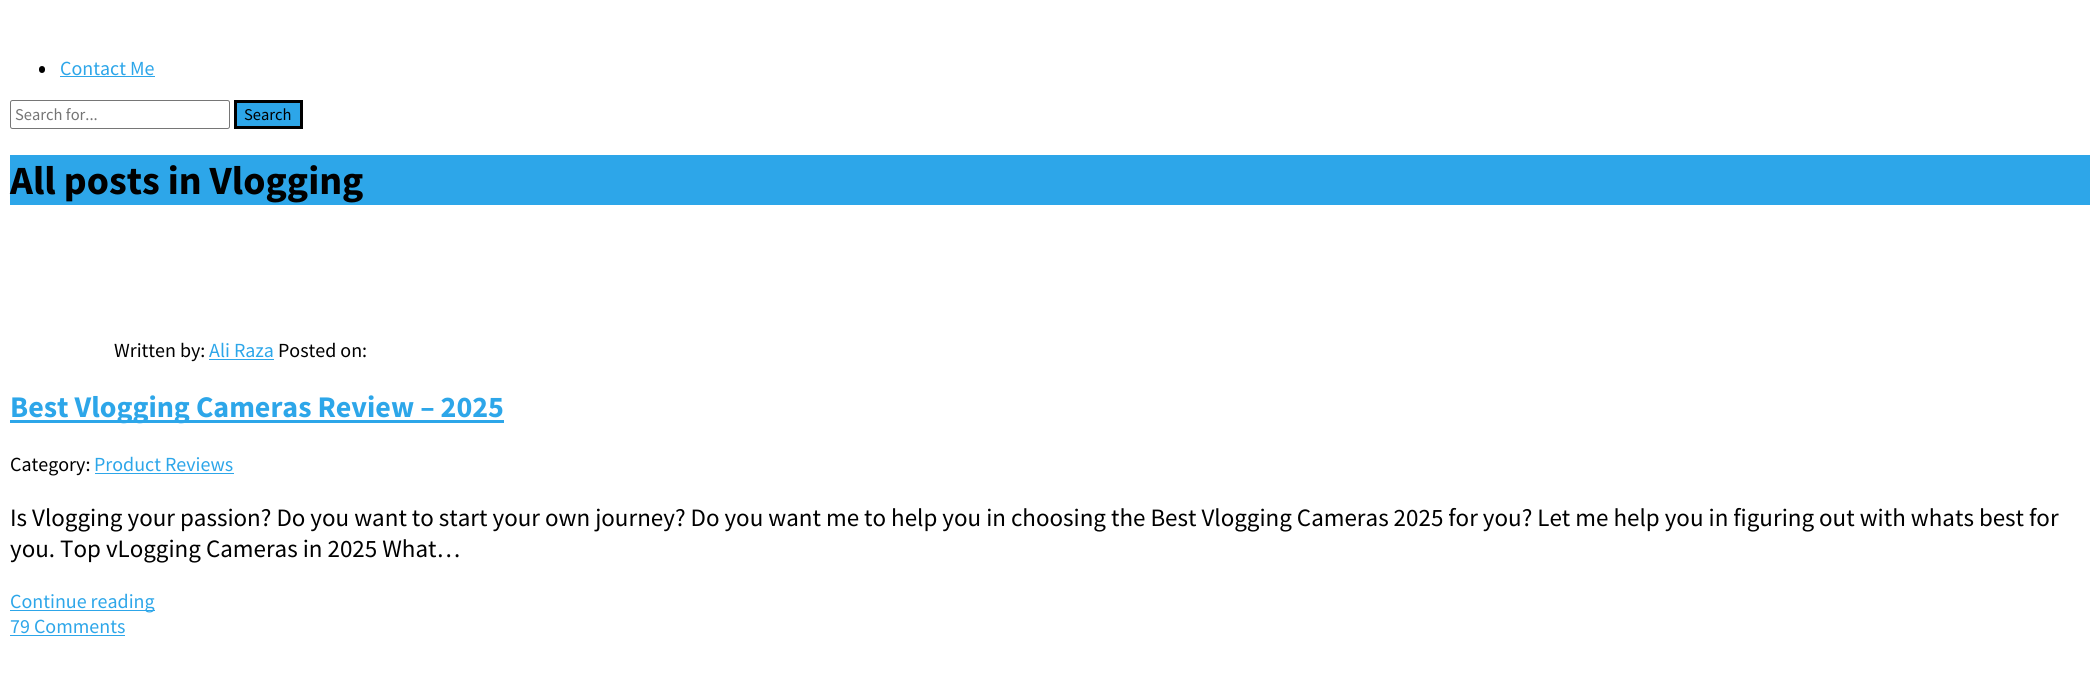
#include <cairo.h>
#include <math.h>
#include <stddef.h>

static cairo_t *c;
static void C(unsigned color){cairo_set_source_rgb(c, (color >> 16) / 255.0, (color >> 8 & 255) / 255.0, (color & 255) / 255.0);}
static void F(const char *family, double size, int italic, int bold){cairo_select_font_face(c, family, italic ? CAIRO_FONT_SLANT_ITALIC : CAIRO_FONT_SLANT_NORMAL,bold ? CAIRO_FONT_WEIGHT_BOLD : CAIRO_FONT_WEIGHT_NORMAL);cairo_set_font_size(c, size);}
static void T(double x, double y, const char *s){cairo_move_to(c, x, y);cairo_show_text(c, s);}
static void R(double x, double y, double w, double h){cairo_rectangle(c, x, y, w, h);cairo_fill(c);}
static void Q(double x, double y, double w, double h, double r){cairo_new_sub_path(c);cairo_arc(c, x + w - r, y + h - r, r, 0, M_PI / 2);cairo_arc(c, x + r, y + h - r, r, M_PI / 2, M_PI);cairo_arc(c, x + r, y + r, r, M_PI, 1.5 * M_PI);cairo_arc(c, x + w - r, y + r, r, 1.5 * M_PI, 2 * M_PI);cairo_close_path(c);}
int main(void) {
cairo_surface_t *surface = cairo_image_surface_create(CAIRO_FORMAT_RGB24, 2100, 684);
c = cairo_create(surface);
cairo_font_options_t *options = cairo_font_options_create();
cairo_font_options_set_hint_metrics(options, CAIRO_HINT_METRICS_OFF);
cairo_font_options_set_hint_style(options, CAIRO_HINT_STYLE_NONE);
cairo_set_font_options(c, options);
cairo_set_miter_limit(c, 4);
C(0xffffff);
cairo_paint(c);
C(0x000000);
Q(39,66,6,7,3);
cairo_fill(c);
F("Source Sans Pro",20,0,0);
C(0x2da6e9);
T(60,75,"Contact Me");
R(60,76,95,1);
Q(10.5,100.5,219,28,2);
C(0x767676);
cairo_set_line_width(c,1);
cairo_stroke(c);
F("Source Sans Pro",16.5,0,0);
C(0x757575);
T(15,120,"Search for...");
C(0x2da6e9);
cairo_rectangle(c,235.5,101.5,66,26);
cairo_fill_preserve(c);
C(0x000000);
cairo_set_line_width(c,3);
cairo_stroke(c);
T(244,120,"Search");
C(0x2da6e9);
R(10,155,2080,50);
F("Source Sans Pro",40,0,1);
C(0x000000);
T(10,194,"All posts in Vlogging");
F("Source Sans Pro",20,0,0);
T(114,357,"Written by:");
C(0x2da6e9);
R(209,359,65,1);
T(209,357,"Ali Raza");
C(0x000000);
T(278,357,"Posted on:");
C(0x2da6e9);
R(10,420,494,3);
F("Source Sans Pro",30,0,1);
T(10,417,"Best Vlogging Cameras Review – 2025");
F("Source Sans Pro",20,0,0);
C(0x000000);
T(10,471,"Category:");
C(0x2da6e9);
R(95,473,139,1);
T(94,471,"Product Reviews");
F("Source Sans Pro",25,0,0);
C(0x000000);
T(10,526,"Is Vlogging your passion? Do you want to start your own journey? Do you want me to help you in choosing the Best Vlogging Cameras 2025 for you? Let me help you in figuring out with whats best for");
T(10,557,"you. Top vLogging Cameras in 2025 What…");
C(0x2da6e9);
R(10,610,145,1);
F("Source Sans Pro",20,0,0);
T(10,608,"Continue reading");
T(10,633,"79 Comments");
R(10,635,115,1);
cairo_surface_write_to_png(surface, "o.png");
cairo_font_options_destroy(options);
cairo_destroy(c);
cairo_surface_destroy(surface);
return 0;
}
